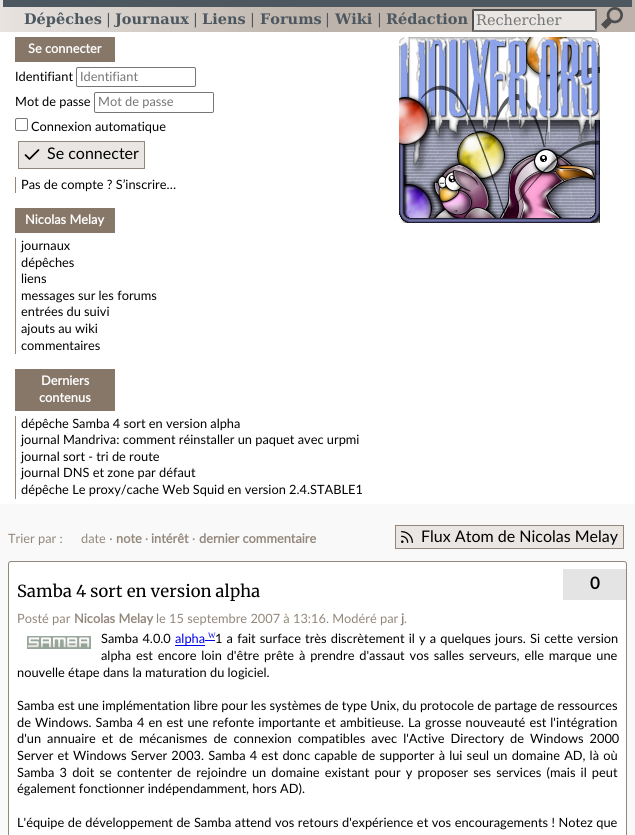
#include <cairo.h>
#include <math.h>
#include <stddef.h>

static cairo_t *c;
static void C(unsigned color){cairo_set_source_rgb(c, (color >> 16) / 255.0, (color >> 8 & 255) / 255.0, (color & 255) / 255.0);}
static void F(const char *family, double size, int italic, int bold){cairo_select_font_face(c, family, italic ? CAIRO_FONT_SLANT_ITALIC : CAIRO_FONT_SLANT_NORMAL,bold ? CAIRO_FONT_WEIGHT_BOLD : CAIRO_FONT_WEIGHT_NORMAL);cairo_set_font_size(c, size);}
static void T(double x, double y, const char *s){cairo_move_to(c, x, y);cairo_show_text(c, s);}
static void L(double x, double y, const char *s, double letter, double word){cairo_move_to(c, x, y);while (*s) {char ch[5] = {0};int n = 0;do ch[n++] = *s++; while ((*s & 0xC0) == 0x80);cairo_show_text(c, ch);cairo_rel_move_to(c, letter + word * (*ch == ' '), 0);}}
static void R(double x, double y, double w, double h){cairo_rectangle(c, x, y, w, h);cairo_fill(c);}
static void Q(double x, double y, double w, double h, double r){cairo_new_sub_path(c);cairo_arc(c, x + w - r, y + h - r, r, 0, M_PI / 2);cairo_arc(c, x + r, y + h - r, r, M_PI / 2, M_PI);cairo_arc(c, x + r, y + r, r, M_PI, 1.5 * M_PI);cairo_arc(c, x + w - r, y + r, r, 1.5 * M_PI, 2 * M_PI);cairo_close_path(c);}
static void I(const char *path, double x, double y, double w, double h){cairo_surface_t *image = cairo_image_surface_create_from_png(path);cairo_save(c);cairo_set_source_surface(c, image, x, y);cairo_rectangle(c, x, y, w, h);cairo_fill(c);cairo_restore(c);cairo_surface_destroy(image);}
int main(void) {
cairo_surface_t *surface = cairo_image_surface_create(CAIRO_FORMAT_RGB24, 635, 835);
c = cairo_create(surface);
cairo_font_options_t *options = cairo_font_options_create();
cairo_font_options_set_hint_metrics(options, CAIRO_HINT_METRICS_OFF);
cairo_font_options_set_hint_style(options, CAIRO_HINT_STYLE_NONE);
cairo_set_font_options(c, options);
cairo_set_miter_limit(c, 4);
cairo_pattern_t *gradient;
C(0xffffff);
cairo_paint(c);
gradient = cairo_pattern_create_linear(0,16,635,16);
cairo_pattern_add_color_stop_rgba(gradient,0,0.906,0.89,0.878,1);
cairo_pattern_add_color_stop_rgba(gradient,.5,0.741,0.702,0.667,1);
cairo_set_source(c,gradient);
cairo_pattern_destroy(gradient);
R(0,0,635,32);
C(0x4c575f);
R(3,0,629,7);
F("DejaVu Serif",14.5,0,1);
T(24,24,"Dépêches");
F("DejaVu Serif",14.5,0,0);
T(106,24,"|");
F("DejaVu Serif",14.5,0,1);
T(115,24,"Journaux");
F("DejaVu Serif",14.5,0,0);
T(193,24,"|");
F("DejaVu Serif",14.5,0,1);
T(202,24,"Liens");
F("DejaVu Serif",14.5,0,0);
T(250,24,"|");
F("DejaVu Serif",14.5,0,1);
T(260,24,"Forums");
F("DejaVu Serif",14.5,0,0);
T(325,24,"|");
F("DejaVu Serif",14.5,0,1);
T(335,24,"Wiki");
F("DejaVu Serif",14.5,0,0);
T(377,24,"|");
F("DejaVu Serif",14.5,0,1);
T(386,24,"Rédaction");
C(0xe9e6e4);
R(472,9,125,23);
C(0x4f4f4f);
cairo_new_path(c);
cairo_move_to(c,472,9);
cairo_line_to(c,597,9);
cairo_line_to(c,595,11);
cairo_line_to(c,474,11);
cairo_close_path(c);
cairo_fill(c);
C(0x767676);
cairo_new_path(c);
cairo_move_to(c,597,9);
cairo_line_to(c,597,32);
cairo_line_to(c,595,30);
cairo_line_to(c,595,11);
cairo_close_path(c);
cairo_fill(c);
cairo_new_path(c);
cairo_move_to(c,597,32);
cairo_line_to(c,472,32);
cairo_line_to(c,474,30);
cairo_line_to(c,595,30);
cairo_close_path(c);
cairo_fill(c);
C(0x4f4f4f);
cairo_new_path(c);
cairo_move_to(c,472,32);
cairo_line_to(c,472,9);
cairo_line_to(c,474,11);
cairo_line_to(c,474,30);
cairo_close_path(c);
cairo_fill(c);
F("DejaVu Serif",14.5,0,0);
C(0x757575);
T(476,25,"Rechercher");
I("1.png",601,7,22,22);
C(0x877768);
R(15,37,100,25);
F("Lato",12.8,0,1);
C(0xffffff);
T(28,53,"Se connecter");
F("Lato",12.8,0,0);
C(0x000000);
T(15,81,"Identifiant");
Q(76.5,67.5,119,19,1.5);
C(0x767676);
cairo_set_line_width(c,1);
cairo_stroke(c);
C(0x757575);
T(80,81,"Identifiant");
C(0x000000);
T(15,106,"Mot de passe");
Q(94.5,92.5,119,20,1.5);
C(0x767676);
cairo_stroke(c);
C(0x757575);
T(98,106,"Mot de passe");
Q(15.5,118.5,12,12,1.5);
C(0x767676);
cairo_stroke(c);
C(0x000000);
T(31,131,"Connexion automatique");
C(0xe9e6e4);
R(19,142,125,26);
cairo_new_path(c);
cairo_move_to(c,38.5,150);
cairo_line_to(c,29.5,159);
cairo_line_to(c,25.5,155);
C(0x000000);
cairo_set_line_width(c,1.7);
cairo_set_line_cap(c,CAIRO_LINE_CAP_ROUND);
cairo_set_line_join(c,CAIRO_LINE_JOIN_ROUND);
cairo_stroke(c);
cairo_rectangle(c,18.5,141.5,126,27);
C(0x93877b);
cairo_set_line_width(c,1);
cairo_set_line_cap(c,CAIRO_LINE_CAP_BUTT);
cairo_set_line_join(c,CAIRO_LINE_JOIN_MITER);
cairo_stroke(c);
F("Lato",16,0,0);
C(0x000000);
T(47,159,"Se connecter");
C(0x93877b);
R(15,177,1,16);
F("Lato",12.8,0,0);
C(0x000000);
T(21,189,"Pas de compte ? S’inscrire…");
I("2.png",399,37,201,186);
C(0x877768);
R(15,208,100,25);
F("Lato",12.8,0,1);
C(0xffffff);
T(25,224,"Nicolas Melay");
C(0x93877b);
R(15,238,1,116);
F("Lato",12.8,0,0);
C(0x000000);
T(21,250,"journaux");
T(21,267,"dépêches");
T(21,283,"liens");
T(21,300,"messages sur les forums");
T(21,316,"entrées du suivi");
T(21,333,"ajouts au wiki");
T(21,350,"commentaires");
C(0x877768);
R(15,369,100,42);
F("Lato",12.8,0,1);
C(0xffffff);
T(41,385,"Derniers");
T(39,402,"contenus");
C(0x93877b);
R(15,416,1,83);
F("Lato",12.8,0,0);
C(0x000000);
T(21,428,"dépêche Samba 4 sort en version alpha");
T(21,444,"journal Mandriva: comment réinstaller un paquet avec urpmi");
T(21,461,"journal sort - tri de route");
T(21,477,"journal DNS et zone par défaut");
T(21,494,"dépêche Le proxy/cache Web Squid en version 2.4.STABLE1");
C(0xf9f9f9);
R(0,504,635,331);
C(0x93877b);
T(8,543,"Trier par :");
T(81,543,"date ·");
F("Lato",12.8,0,1);
T(116,543,"note");
F("Lato",12.8,0,0);
T(145,543,"·");
F("Lato",12.8,0,1);
T(151,543,"intérêt");
F("Lato",12.8,0,0);
T(192,543,"·");
F("Lato",12.8,0,1);
T(199,543,"dernier commentaire");
C(0xe9e6e4);
R(396,526,227,22);
I("3.png",401,531,12,12);
cairo_rectangle(c,395.5,525.5,228,23);
C(0x93877b);
cairo_stroke(c);
F("Lato",16,0,0);
C(0x000000);
T(421,542,"Flux Atom de Nicolas Melay");
C(0xffffff);
Q(8.5,561.5,618,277,2.5);
cairo_fill_preserve(c);
C(0x93877b);
cairo_stroke(c);
F("Merriweather",16.6,0,0);
C(0x000000);
T(17,597,"Samba 4 sort en version alpha");
F("Lato",12.8,0,0);
C(0x93877b);
T(17,623,"Posté par");
F("Lato",12.8,0,1);
T(74,623,"Nicolas Melay");
F("Lato",12.8,0,0);
T(156,623,"le 15 septembre 2007 à 13:16. Modéré par");
F("Lato",12.8,0,1);
T(401,623,"j");
F("Lato",12.8,0,0);
T(404,623,".");
C(0xe4e4e4);
R(563,569,63,31);
F("Lato",16.6,0,1);
C(0x000000);
T(590,589,"0");
I("4.png",27,636,64,13);
F("Lato",12.8,0,0);
L(101,643,"Samba 4.0.0",0,.8);
C(0x0000ee);
R(175,645,30,1);
T(175,643,"alpha");
R(205,640,10,1);
F("Liberation Serif",8,0,0);
T(208,638,"W");
F("Lato",12.8,0,0);
C(0x000000);
L(215,643,"1 a fait surface très discrètement il y a quelques jours. Si cette version",0,.9);
L(101,660,"alpha est encore loin d'être prête à prendre d'assaut vos salles serveurs, elle marque une",0,1.6);
T(17,677,"nouvelle étape dans la maturation du logiciel.");
T(17,710,"Samba est une implémentation libre pour les systèmes de type Unix, du protocole de partage de ressources");
L(17,727,"de Windows. Samba 4 en est une refonte importante et ambitieuse. La grosse nouveauté est l'intégration",0,.8);
L(17,743,"d'un annuaire et de mécanismes de connexion compatibles avec l'Active Directory de Windows 2000",0,2.75);
L(17,760,"Server et Windows Server 2003. Samba 4 est donc capable de supporter à lui seul un domaine AD, là où",0,.9);
L(17,777,"Samba 3 doit se contenter de rejoindre un domaine existant pour y proposer ses services (mais il peut",0,1.9);
T(17,793,"également fonctionner indépendamment, hors AD).");
L(17,827,"L'équipe de développement de Samba attend vos retours d'expérience et vos encouragements ! Notez que",0,.25);
cairo_surface_write_to_png(surface, "o.png");
cairo_font_options_destroy(options);
cairo_destroy(c);
cairo_surface_destroy(surface);
return 0;
}
